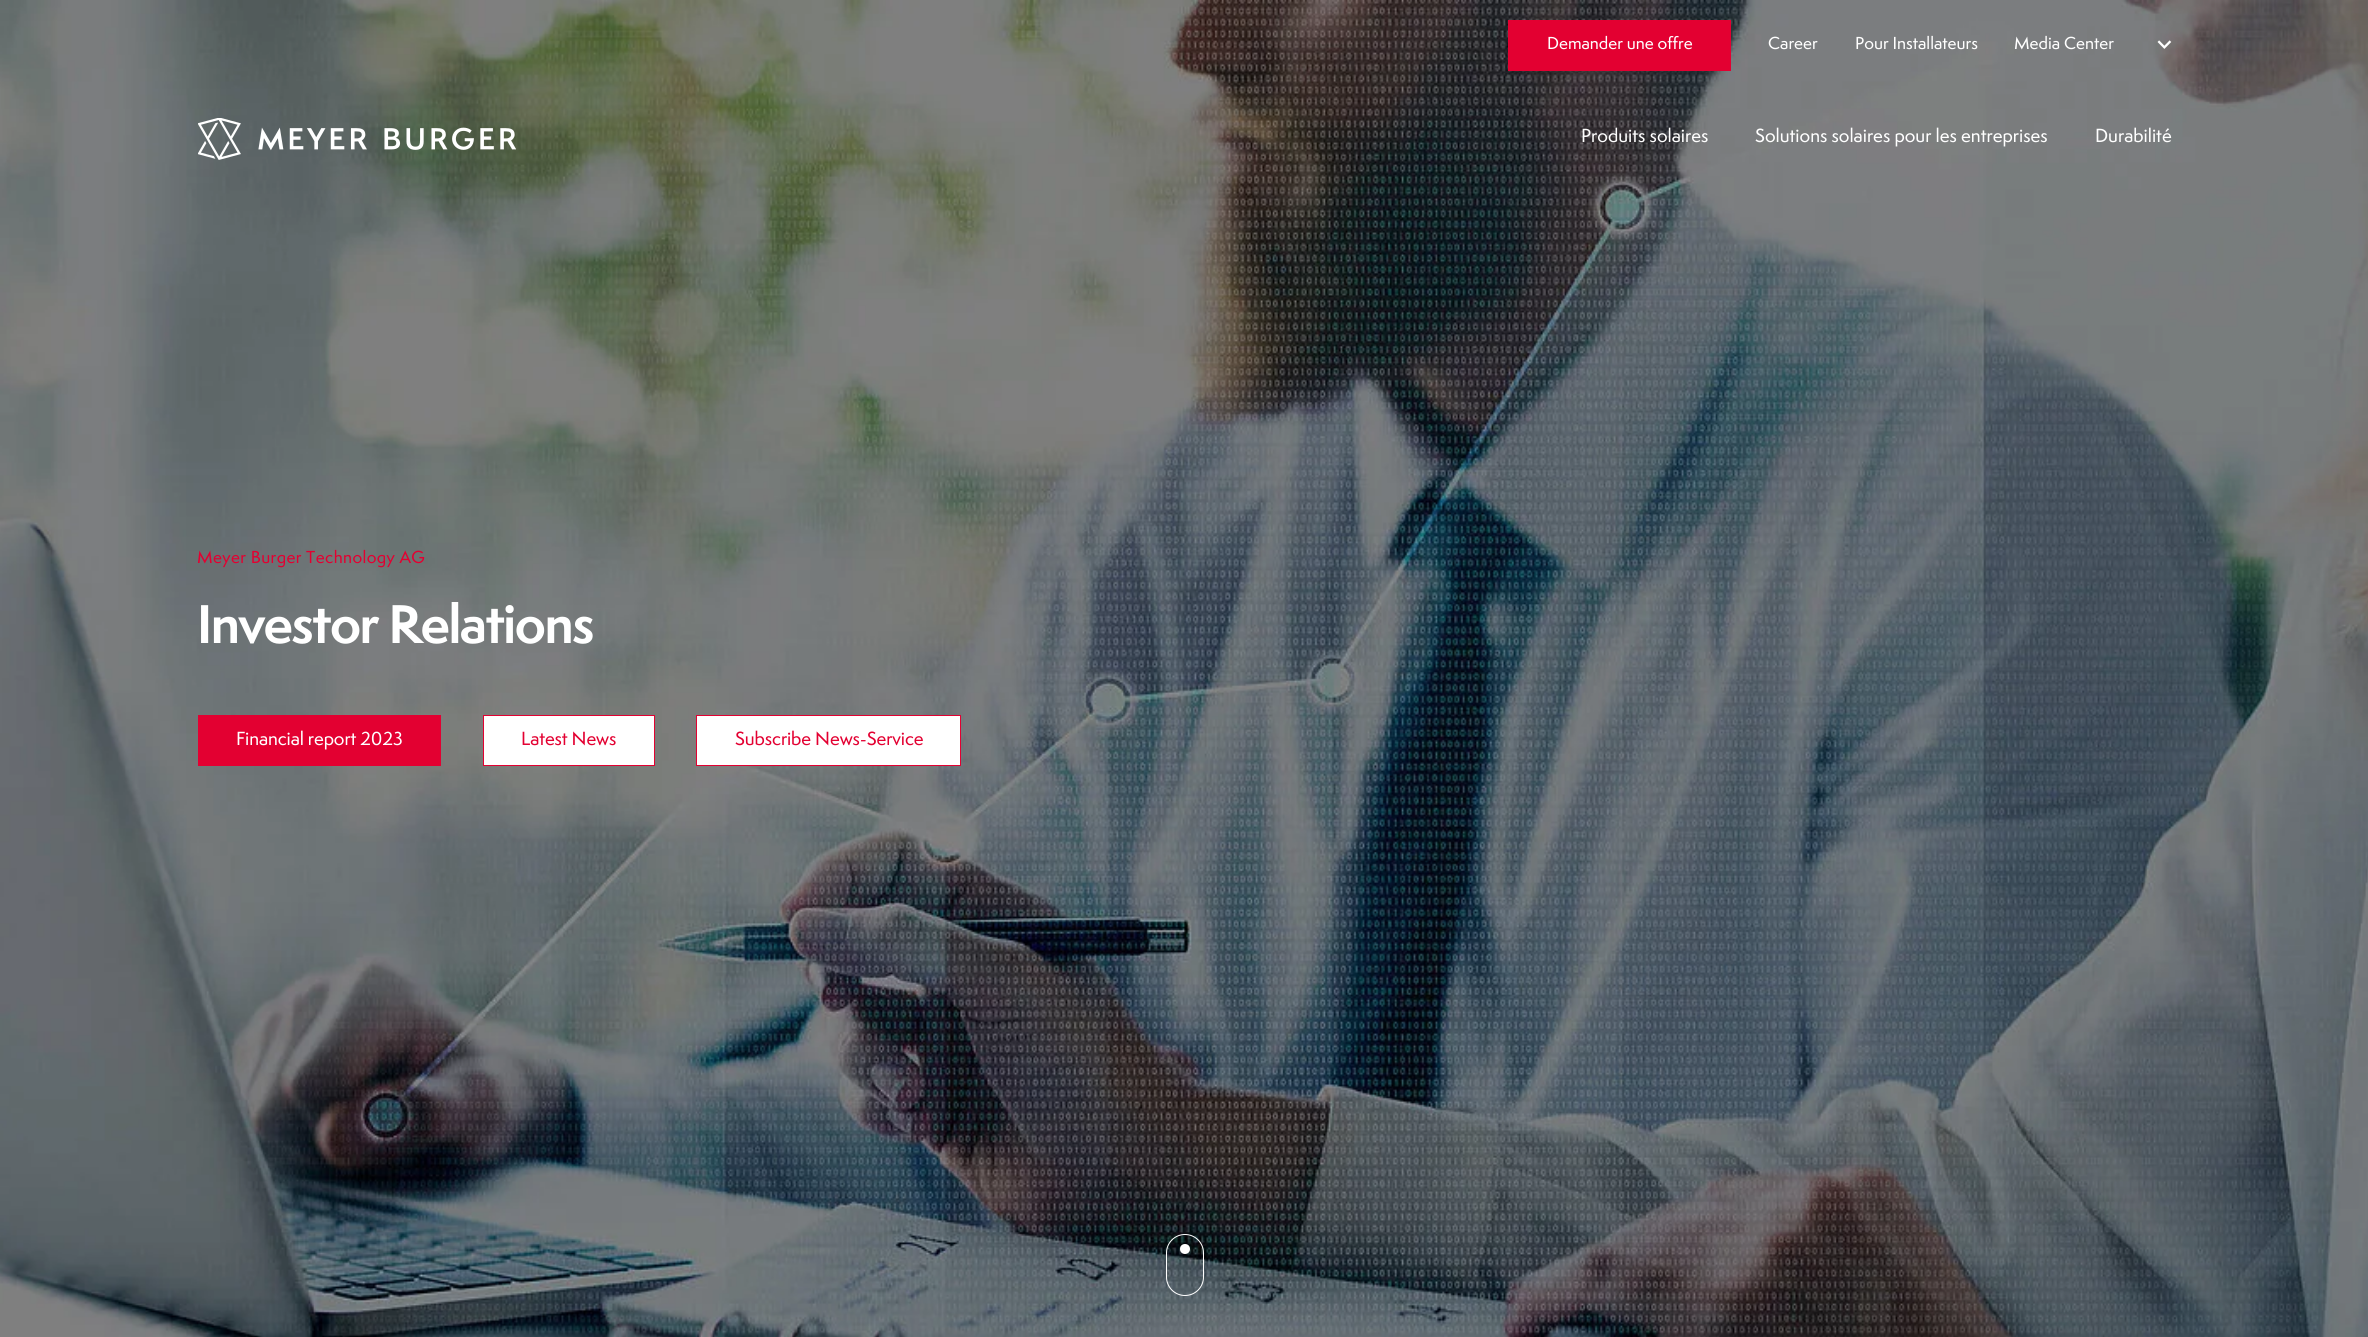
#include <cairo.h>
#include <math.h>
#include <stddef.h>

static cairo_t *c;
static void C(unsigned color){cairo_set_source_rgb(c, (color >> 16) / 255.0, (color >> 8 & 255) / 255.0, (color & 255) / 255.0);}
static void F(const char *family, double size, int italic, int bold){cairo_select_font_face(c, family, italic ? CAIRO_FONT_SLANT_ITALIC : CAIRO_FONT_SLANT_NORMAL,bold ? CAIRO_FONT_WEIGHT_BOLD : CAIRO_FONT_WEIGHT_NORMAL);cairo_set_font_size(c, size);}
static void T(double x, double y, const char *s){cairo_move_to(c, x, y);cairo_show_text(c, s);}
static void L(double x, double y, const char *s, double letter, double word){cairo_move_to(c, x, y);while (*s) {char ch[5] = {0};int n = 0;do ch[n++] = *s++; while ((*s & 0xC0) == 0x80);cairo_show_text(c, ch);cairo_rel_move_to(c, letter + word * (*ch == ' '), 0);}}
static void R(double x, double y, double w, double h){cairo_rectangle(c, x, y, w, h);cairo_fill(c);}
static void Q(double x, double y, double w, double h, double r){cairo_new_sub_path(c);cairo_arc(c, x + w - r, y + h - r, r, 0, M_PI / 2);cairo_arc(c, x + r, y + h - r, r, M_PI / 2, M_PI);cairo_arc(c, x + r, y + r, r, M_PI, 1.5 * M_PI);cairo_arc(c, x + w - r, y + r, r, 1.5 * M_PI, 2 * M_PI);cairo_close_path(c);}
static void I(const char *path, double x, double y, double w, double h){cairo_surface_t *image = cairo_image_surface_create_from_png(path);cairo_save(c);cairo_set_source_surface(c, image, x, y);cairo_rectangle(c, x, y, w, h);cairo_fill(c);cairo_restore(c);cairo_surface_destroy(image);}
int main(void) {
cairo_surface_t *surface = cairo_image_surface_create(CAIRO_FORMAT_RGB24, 2368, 1337);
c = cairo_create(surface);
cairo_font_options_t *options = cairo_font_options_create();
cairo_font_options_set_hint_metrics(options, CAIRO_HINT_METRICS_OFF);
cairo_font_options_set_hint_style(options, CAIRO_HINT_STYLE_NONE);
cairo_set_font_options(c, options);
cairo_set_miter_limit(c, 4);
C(0xffffff);
cairo_paint(c);
I("3.png",0,0,2368,1337);
C(0xe30031);
R(1508,20,223,51);
F("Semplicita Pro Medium",16,0,0);
C(0xffffff);
T(1547,49,"Demander une offre");
T(1768,49,"Career");
T(1855,49,"Pour Installateurs");
T(2014,49,"Media Center");
I("1.png",2157,40,15,9);
I("2.png",198,118,318,42);
F("Semplicita Pro Medium",17.5,0,0);
T(1581,142,"Produits solaires");
T(1755,142,"Solutions solaires pour les entreprises");
T(2095,142,"Durabilité");
F("Semplicita Pro Medium",16,0,0);
C(0xe30031);
L(197,563,"Meyer Burger Technology AG",.4,0);
F("Semplicita Pro",50,0,1);
C(0xffffff);
L(197,643,"Investor Relations",-1.5,0);
C(0xe30031);
R(198,715,243,51);
F("Semplicita Pro Medium",17.5,0,0);
C(0xffffff);
L(236,745,"Financial report 2023",-.1,0);
cairo_rectangle(c,483.5,715.5,171,50);
cairo_fill_preserve(c);
C(0xe30031);
cairo_set_line_width(c,1);
cairo_stroke(c);
L(521,745,"Latest News",-.1,0);
C(0xffffff);
cairo_rectangle(c,696.5,715.5,264,50);
cairo_fill_preserve(c);
C(0xe30031);
cairo_stroke(c);
L(735,745,"Subscribe News-Service",-.1,0);
Q(1166.5,1234.5,37,61,18.5);
C(0xffffff);
cairo_stroke(c);
cairo_arc(c,1185,1249,5,0,2 * M_PI);
cairo_fill(c);
cairo_surface_write_to_png(surface, "o.png");
cairo_font_options_destroy(options);
cairo_destroy(c);
cairo_surface_destroy(surface);
return 0;
}
